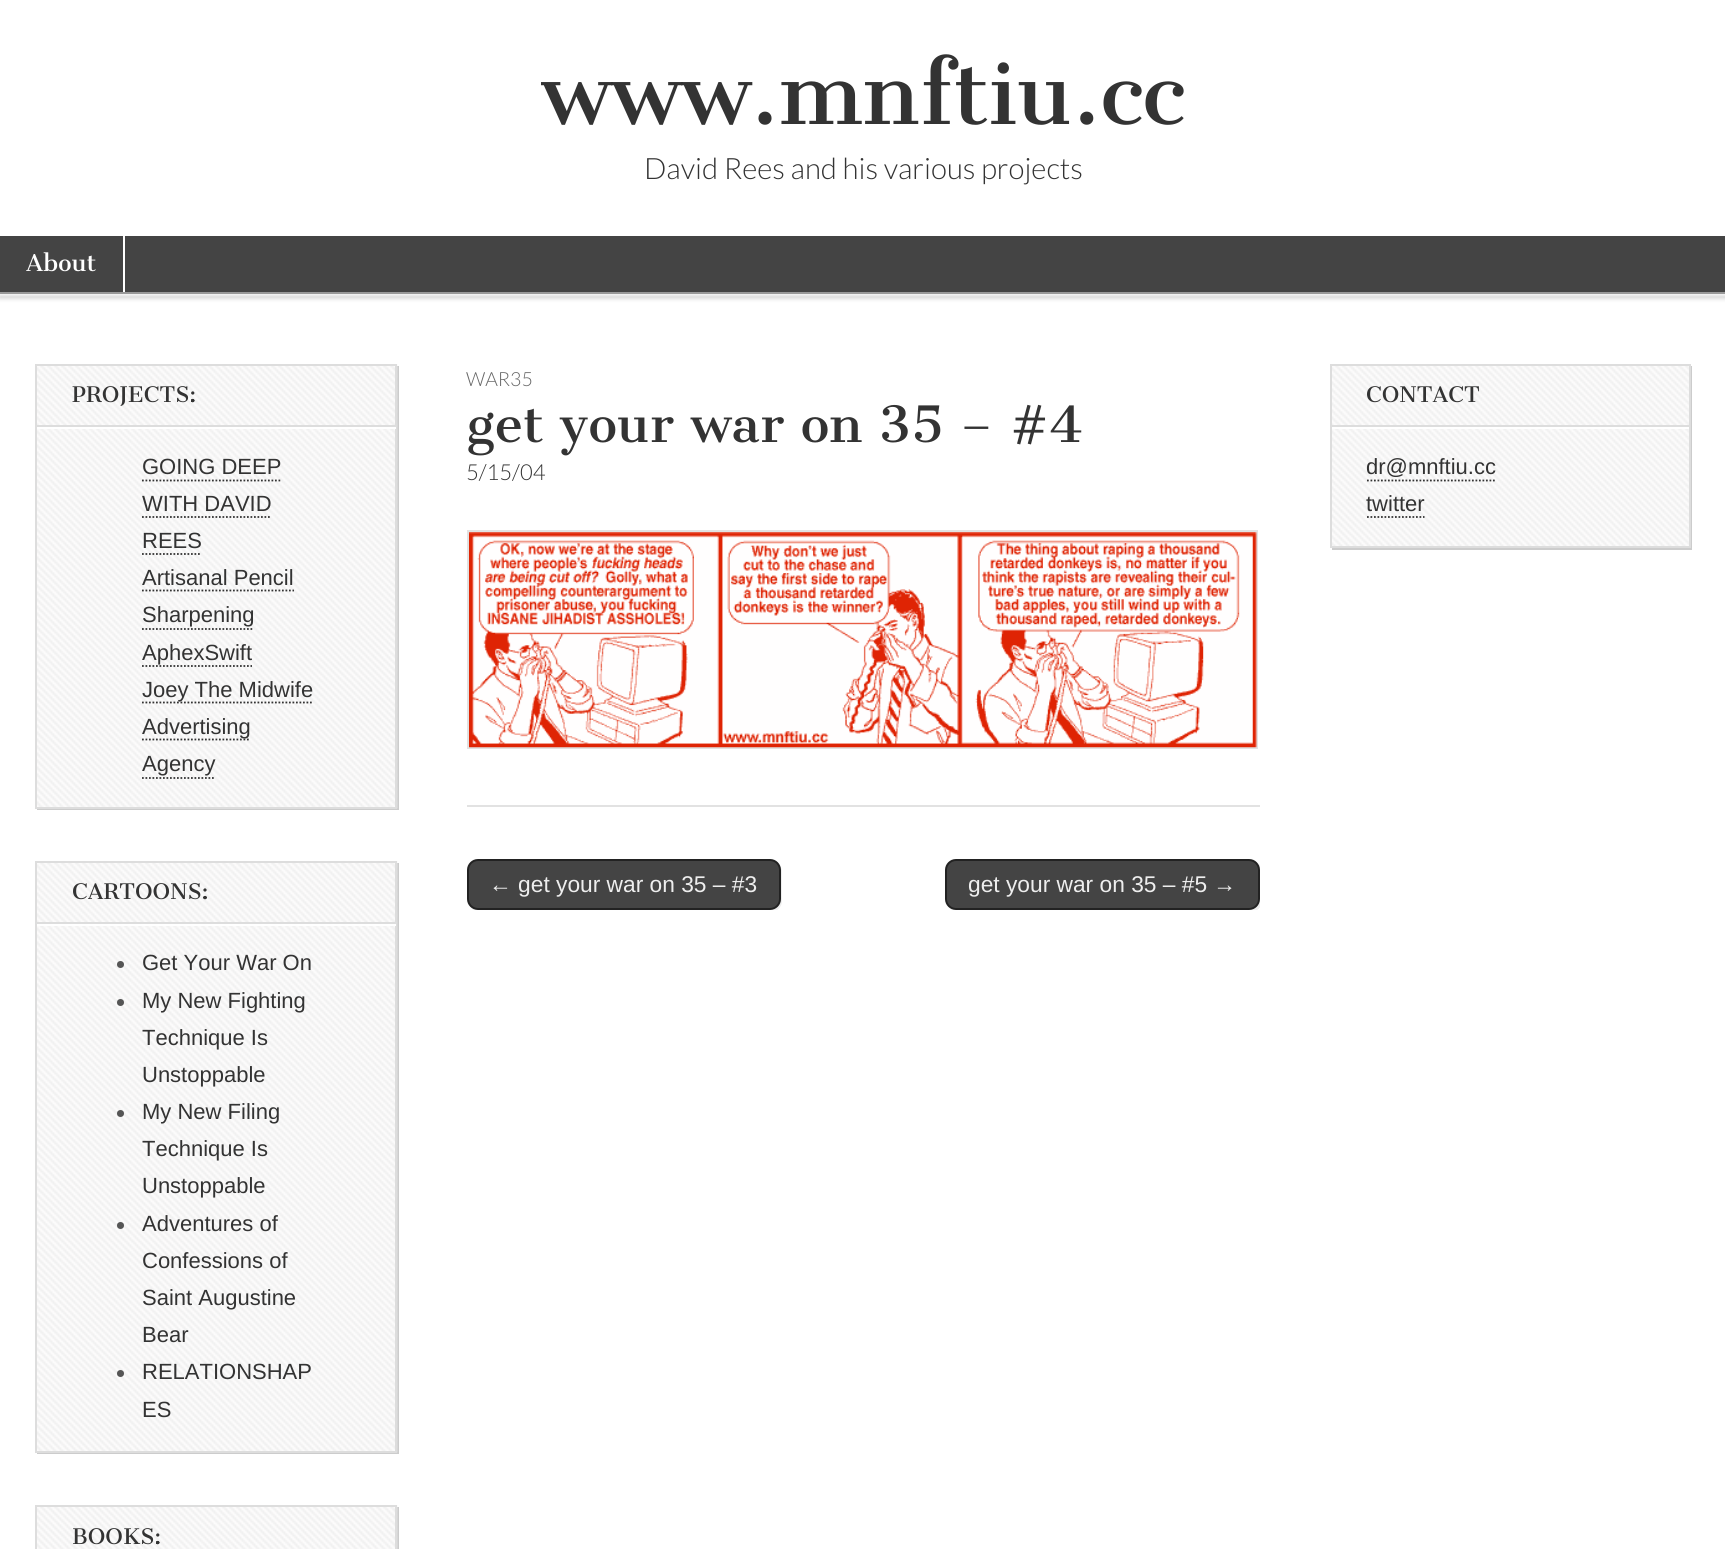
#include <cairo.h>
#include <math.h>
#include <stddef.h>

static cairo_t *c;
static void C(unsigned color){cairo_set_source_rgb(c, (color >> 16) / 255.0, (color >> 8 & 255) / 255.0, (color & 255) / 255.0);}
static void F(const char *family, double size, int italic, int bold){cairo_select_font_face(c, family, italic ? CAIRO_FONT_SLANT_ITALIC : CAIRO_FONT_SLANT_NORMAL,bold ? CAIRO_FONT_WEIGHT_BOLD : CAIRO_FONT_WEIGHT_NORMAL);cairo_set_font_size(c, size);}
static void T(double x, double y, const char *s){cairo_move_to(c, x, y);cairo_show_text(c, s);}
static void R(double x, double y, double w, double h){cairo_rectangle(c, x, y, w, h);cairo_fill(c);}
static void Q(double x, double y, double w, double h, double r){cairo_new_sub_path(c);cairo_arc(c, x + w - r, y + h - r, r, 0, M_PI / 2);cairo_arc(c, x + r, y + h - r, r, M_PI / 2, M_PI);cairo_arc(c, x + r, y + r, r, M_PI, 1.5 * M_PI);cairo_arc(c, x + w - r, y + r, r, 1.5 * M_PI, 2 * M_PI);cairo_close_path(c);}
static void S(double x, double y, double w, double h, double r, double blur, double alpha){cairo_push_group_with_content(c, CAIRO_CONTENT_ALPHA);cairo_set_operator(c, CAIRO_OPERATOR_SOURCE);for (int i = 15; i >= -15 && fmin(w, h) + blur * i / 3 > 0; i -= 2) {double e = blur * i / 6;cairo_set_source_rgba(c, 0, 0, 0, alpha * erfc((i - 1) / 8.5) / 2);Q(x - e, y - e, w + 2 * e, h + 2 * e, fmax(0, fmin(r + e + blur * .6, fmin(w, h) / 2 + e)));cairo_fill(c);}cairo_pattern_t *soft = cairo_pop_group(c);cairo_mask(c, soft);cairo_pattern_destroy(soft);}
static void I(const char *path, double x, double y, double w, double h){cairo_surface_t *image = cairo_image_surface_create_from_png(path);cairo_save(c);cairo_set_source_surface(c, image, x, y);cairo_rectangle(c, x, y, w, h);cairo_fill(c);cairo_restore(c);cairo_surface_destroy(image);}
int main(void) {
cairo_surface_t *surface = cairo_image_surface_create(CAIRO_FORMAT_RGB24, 1725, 1549);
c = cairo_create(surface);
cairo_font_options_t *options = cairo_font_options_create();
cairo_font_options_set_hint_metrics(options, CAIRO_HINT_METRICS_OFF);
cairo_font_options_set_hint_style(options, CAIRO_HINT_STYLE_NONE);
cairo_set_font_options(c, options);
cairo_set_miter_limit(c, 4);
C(0xffffff);
cairo_paint(c);
F("Cantata One",84,0,0);
C(0x333333);
T(541,124,"www.mnftiu.cc");
F("Lato Light",29.4,0,0);
T(644,179,"David Rees and his various projects");
C(0x000000);
S(0,296,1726,2,0,2.5,.2);
C(0x444444);
R(0,236,1725,56);
C(0xffffff);
R(123,236,2,56);
F("Cantata One",22.75,0,0);
T(26,271,"About");
C(0x999999);
R(0,292,1725,2);
C(0xcccccc);
cairo_new_path(c);
cairo_move_to(c,37,808);
cairo_line_to(c,37,810);
cairo_line_to(c,399,810);
cairo_line_to(c,399,366);
cairo_line_to(c,397,366);
cairo_line_to(c,397,808);
cairo_close_path(c);
cairo_fill(c);
I("1.png",37,364,361,445);
cairo_rectangle(c,36,365,360,443);
C(0xdddddd);
cairo_stroke(c);
C(0xffffff);
cairo_new_path(c);
cairo_move_to(c,37,427);
cairo_line_to(c,37,429);
cairo_line_to(c,396,429);
cairo_line_to(c,396,368);
cairo_line_to(c,396,427);
cairo_close_path(c);
cairo_fill(c);
C(0xdddddd);
R(37,425,359,2);
F("Cantata One",21,0,0);
C(0x333333);
T(72,402,"PROJECTS:");
F("Liberation Sans",22,0,0);
T(142,474,"GOING DEEP");
cairo_new_path(c);
cairo_move_to(c,142,480.5);
cairo_line_to(c,282,480.5);
cairo_set_line_width(c,1.8);
cairo_set_dash(c,(double[]){1.75,1.75},2,0);
cairo_stroke(c);
T(142,511,"WITH DAVID");
cairo_new_path(c);
cairo_move_to(c,142,517);
cairo_line_to(c,271,517);
cairo_stroke(c);
T(142,548,"REES");
cairo_new_path(c);
cairo_move_to(c,142,554);
cairo_line_to(c,201,554);
cairo_stroke(c);
T(142,585,"Artisanal Pencil");
cairo_new_path(c);
cairo_move_to(c,142,590.5);
cairo_line_to(c,294,590.5);
cairo_stroke(c);
T(142,622,"Sharpening");
cairo_new_path(c);
cairo_move_to(c,142,629);
cairo_line_to(c,254,629);
cairo_stroke(c);
T(142,660,"AphexSwift");
cairo_new_path(c);
cairo_move_to(c,142,666);
cairo_line_to(c,252,666);
cairo_stroke(c);
cairo_new_path(c);
cairo_move_to(c,142,702.5);
cairo_line_to(c,313,702.5);
cairo_stroke(c);
T(142,697,"Joey The Midwife");
cairo_new_path(c);
cairo_move_to(c,142,739.5);
cairo_line_to(c,250,739.5);
cairo_stroke(c);
T(142,734,"Advertising");
T(142,771,"Agency");
cairo_new_path(c);
cairo_move_to(c,142,778);
cairo_line_to(c,215,778);
cairo_stroke(c);
C(0xcccccc);
cairo_new_path(c);
cairo_move_to(c,37,1452);
cairo_line_to(c,37,1454);
cairo_line_to(c,399,1454);
cairo_line_to(c,399,863);
cairo_line_to(c,397,863);
cairo_line_to(c,397,1452);
cairo_close_path(c);
cairo_fill(c);
I("2.png",37,861,361,592);
cairo_rectangle(c,36,862,360,590);
C(0xdddddd);
cairo_set_line_width(c,2);
cairo_set_dash(c,NULL,0,0);
cairo_stroke(c);
C(0xffffff);
cairo_new_path(c);
cairo_move_to(c,37,924);
cairo_line_to(c,37,926);
cairo_line_to(c,396,926);
cairo_line_to(c,396,865);
cairo_line_to(c,396,924);
cairo_close_path(c);
cairo_fill(c);
C(0xdddddd);
R(37,922,359,2);
F("Cantata One",21,0,0);
C(0x333333);
T(72,899,"CARTOONS:");
C(0x555555);
cairo_new_path(c);
cairo_arc(c,120.5,964.5,3.5,0,2 * M_PI);
cairo_fill(c);
F("Liberation Sans",22,0,0);
C(0x333333);
T(142,970,"Get Your War On");
C(0x555555);
cairo_new_path(c);
cairo_arc(c,120.5,1002.5,3.5,0,2 * M_PI);
cairo_fill(c);
C(0x333333);
T(142,1008,"My New Fighting");
T(142,1045,"Technique Is");
T(142,1082,"Unstoppable");
C(0x555555);
cairo_new_path(c);
cairo_arc(c,120.5,1113.5,3.5,0,2 * M_PI);
cairo_fill(c);
C(0x333333);
T(142,1119,"My New Filing");
T(142,1156,"Technique Is");
T(142,1193,"Unstoppable");
C(0x555555);
cairo_new_path(c);
cairo_arc(c,120.5,1225.5,3.5,0,2 * M_PI);
cairo_fill(c);
C(0x333333);
T(142,1231,"Adventures of");
T(142,1268,"Confessions of");
T(142,1305,"Saint Augustine");
T(142,1342,"Bear");
C(0x555555);
cairo_new_path(c);
cairo_arc(c,120.5,1373.5,3.5,0,2 * M_PI);
cairo_fill(c);
C(0x333333);
T(142,1379,"RELATIONSHAP");
T(142,1417,"ES");
C(0xcccccc);
cairo_new_path(c);
cairo_move_to(c,37,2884);
cairo_line_to(c,37,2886);
cairo_line_to(c,399,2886);
cairo_line_to(c,399,1507);
cairo_line_to(c,397,1507);
cairo_line_to(c,397,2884);
cairo_close_path(c);
cairo_fill(c);
I("3.png",37,1505,361,44);
cairo_rectangle(c,36,1506,360,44);
C(0xdddddd);
cairo_stroke(c);
F("Cantata One",21,0,0);
C(0x333333);
T(72,1544,"BOOKS:");
C(0xe2e2e2);
R(467,805,793,2);
F("Lato Light",19.5,0,0);
C(0x666666);
T(466,386,"WAR35");
F("Cantata One",49,0,0);
C(0x333333);
T(466,442,"get your war on 35 – #4");
F("Lato Light",22,0,0);
T(466,480,"5/15/04");
cairo_rectangle(c,468,531,789,217);
C(0xe2e2e2);
cairo_stroke(c);
I("4.png",469,532,788,216);
cairo_save(c);
cairo_rectangle(c,467,859,793,51);
cairo_clip(c);
C(0xeeeeee);
cairo_new_path(c);
cairo_move_to(c,471,908);
cairo_curve_to(c,473,910,477,912,480,912);
cairo_line_to(c,771,912);
cairo_curve_to(c,777,912,782,907,782,901);
cairo_line_to(c,782,872);
cairo_curve_to(c,782,869,781,867,779,865);
cairo_curve_to(c,780,866,780,868,780,870);
cairo_line_to(c,780,900);
cairo_curve_to(c,780,905,776,910,770,910);
cairo_line_to(c,478,910);
cairo_curve_to(c,475,910,473,909,471,908);
cairo_close_path(c);
cairo_fill(c);
cairo_restore(c);
C(0x444444);
Q(468,860,312,49,10);
cairo_fill_preserve(c);
C(0x222222);
cairo_stroke(c);
F("Liberation Sans",22.75,0,0);
C(0xeeeeee);
T(489,892,"← get your war on 35 – #3");
cairo_save(c);
cairo_rectangle(c,467,859,793,51);
cairo_clip(c);
cairo_new_path(c);
cairo_move_to(c,950,908);
cairo_curve_to(c,952,911,955,912,958,912);
cairo_line_to(c,1251,912);
cairo_curve_to(c,1257,912,1262,907,1262,901);
cairo_line_to(c,1262,872);
cairo_curve_to(c,1262,869,1260,865,1258,863);
cairo_curve_to(c,1259,865,1260,867,1260,870);
cairo_line_to(c,1260,900);
cairo_curve_to(c,1260,905,1255,910,1250,910);
cairo_line_to(c,956,910);
cairo_curve_to(c,953,910,951,909,950,908);
cairo_close_path(c);
cairo_fill(c);
cairo_restore(c);
C(0x444444);
Q(946,860,313,49,10);
cairo_fill_preserve(c);
C(0x222222);
cairo_stroke(c);
C(0xeeeeee);
T(968,892,"get your war on 35 – #5 →");
C(0xcccccc);
cairo_new_path(c);
cairo_move_to(c,1332,548);
cairo_line_to(c,1332,550);
cairo_line_to(c,1692,550);
cairo_line_to(c,1692,366);
cairo_line_to(c,1690,366);
cairo_line_to(c,1690,548);
cairo_close_path(c);
cairo_fill(c);
I("5.png",1332,366,357,180);
cairo_rectangle(c,1331,365,359,182);
C(0xdddddd);
cairo_stroke(c);
C(0xffffff);
cairo_new_path(c);
cairo_move_to(c,1332,427);
cairo_line_to(c,1332,429);
cairo_line_to(c,1689,429);
cairo_line_to(c,1689,368);
cairo_line_to(c,1689,427);
cairo_close_path(c);
cairo_fill(c);
C(0xdddddd);
R(1332,425,357,2);
F("Cantata One",21,0,0);
C(0x333333);
T(1366,402,"CONTACT");
F("Liberation Sans",22,0,0);
T(1366,474,"dr@mnftiu.cc");
cairo_new_path(c);
cairo_move_to(c,1367,480.5);
cairo_line_to(c,1496,480.5);
cairo_set_line_width(c,1.8);
cairo_set_dash(c,(double[]){1.75,1.75},2,0);
cairo_stroke(c);
T(1366,511,"twitter");
cairo_new_path(c);
cairo_move_to(c,1367,517);
cairo_line_to(c,1424.5,517);
cairo_stroke(c);
cairo_surface_write_to_png(surface, "o.png");
cairo_font_options_destroy(options);
cairo_destroy(c);
cairo_surface_destroy(surface);
return 0;
}
